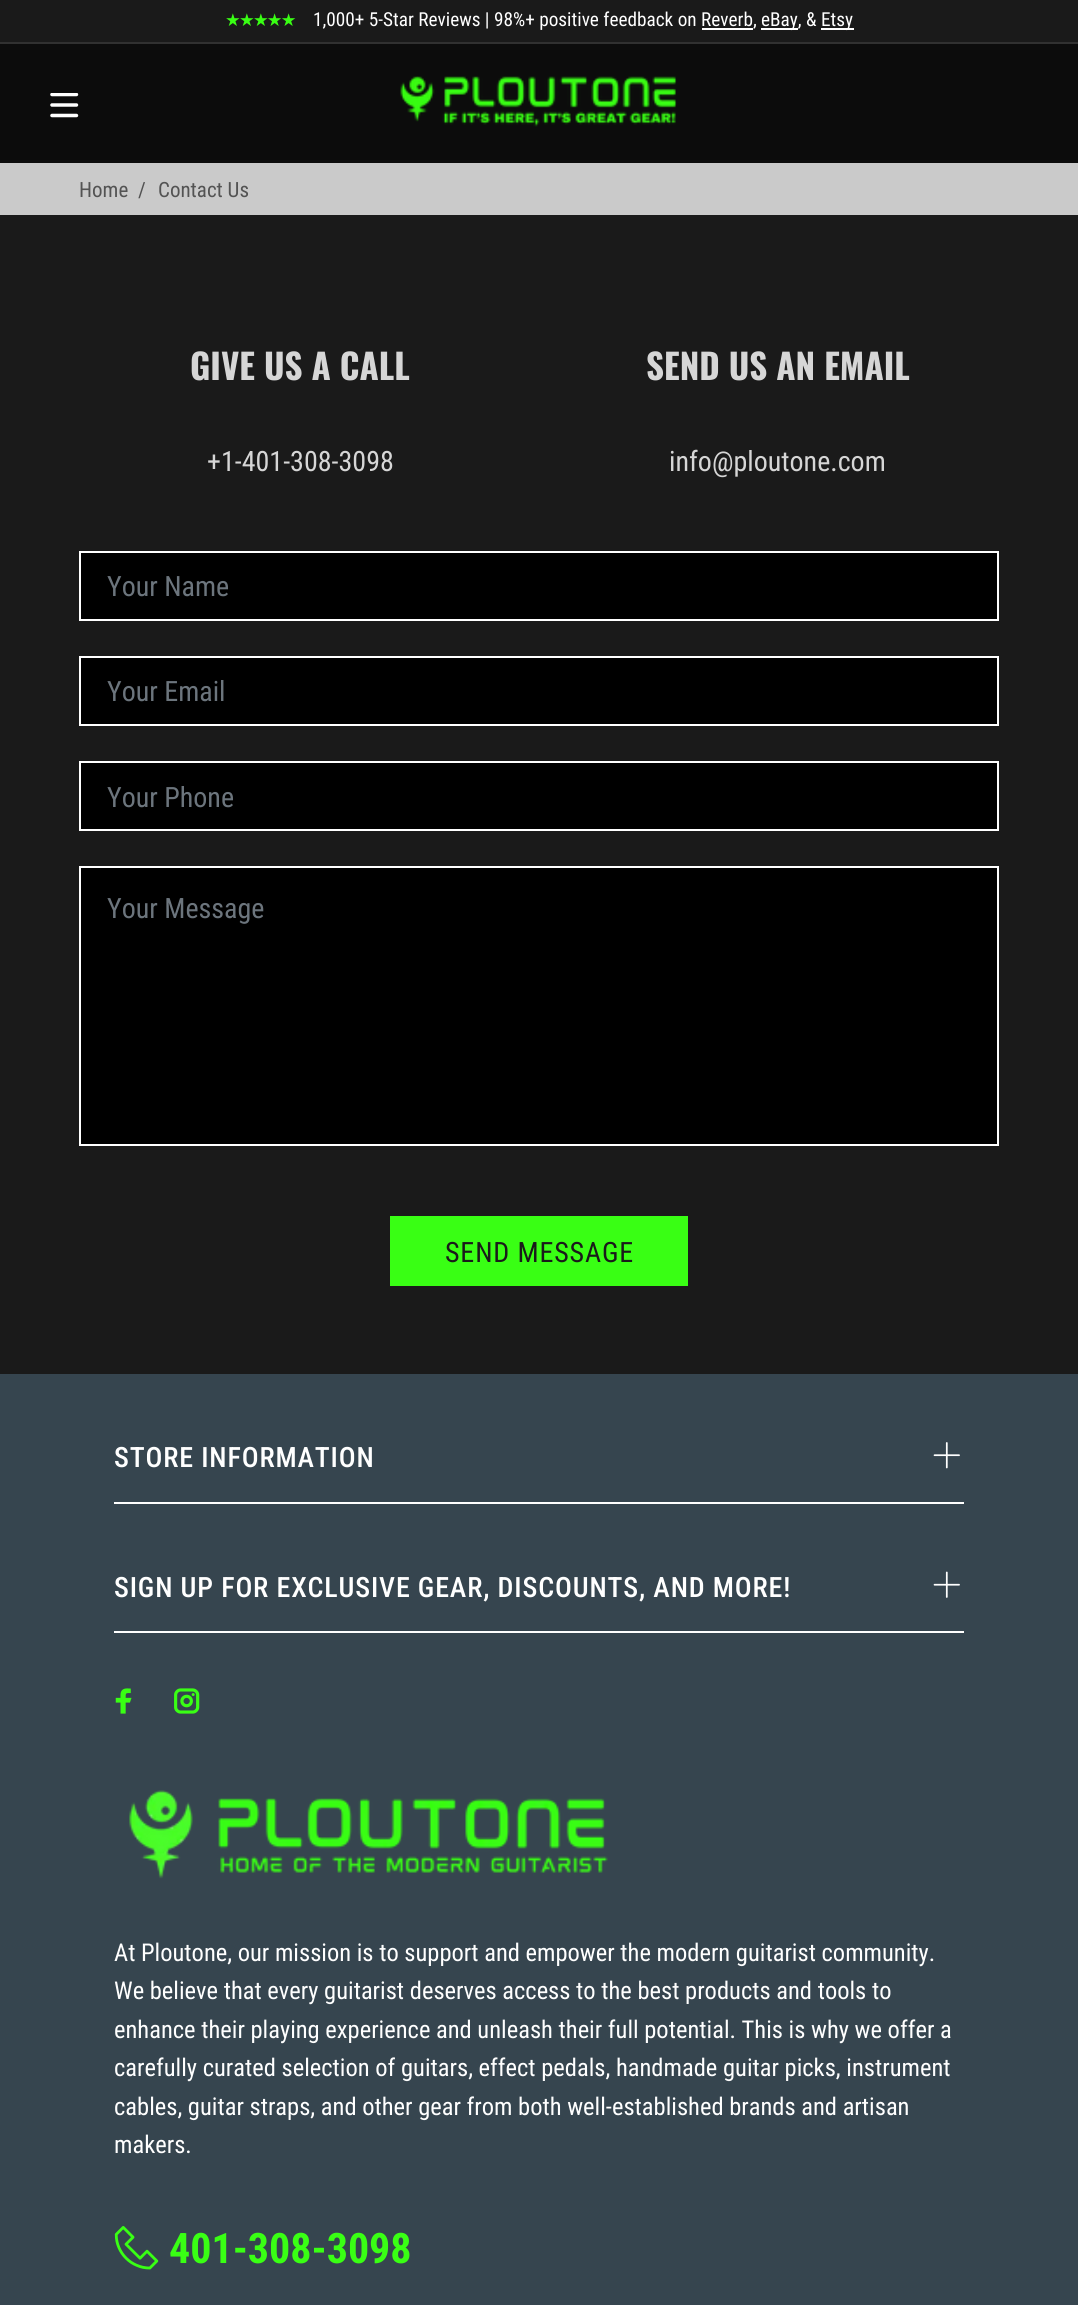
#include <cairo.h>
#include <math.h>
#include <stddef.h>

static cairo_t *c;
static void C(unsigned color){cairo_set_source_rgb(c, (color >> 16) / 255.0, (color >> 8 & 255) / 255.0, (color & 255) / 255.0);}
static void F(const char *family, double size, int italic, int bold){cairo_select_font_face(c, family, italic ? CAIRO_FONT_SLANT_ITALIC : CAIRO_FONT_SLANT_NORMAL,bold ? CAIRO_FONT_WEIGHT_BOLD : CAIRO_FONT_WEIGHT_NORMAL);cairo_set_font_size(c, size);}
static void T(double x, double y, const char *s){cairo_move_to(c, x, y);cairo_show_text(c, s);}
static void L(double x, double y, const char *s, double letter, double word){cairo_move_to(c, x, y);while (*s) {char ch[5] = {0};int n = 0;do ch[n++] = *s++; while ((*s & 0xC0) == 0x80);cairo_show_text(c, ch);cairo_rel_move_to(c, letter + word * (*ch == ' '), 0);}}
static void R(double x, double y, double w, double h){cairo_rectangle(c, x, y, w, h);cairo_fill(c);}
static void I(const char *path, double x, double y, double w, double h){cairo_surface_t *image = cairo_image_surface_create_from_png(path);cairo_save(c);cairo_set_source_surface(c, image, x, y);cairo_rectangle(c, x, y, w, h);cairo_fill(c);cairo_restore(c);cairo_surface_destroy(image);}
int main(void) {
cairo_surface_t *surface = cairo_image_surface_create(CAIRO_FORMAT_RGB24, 1078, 2305);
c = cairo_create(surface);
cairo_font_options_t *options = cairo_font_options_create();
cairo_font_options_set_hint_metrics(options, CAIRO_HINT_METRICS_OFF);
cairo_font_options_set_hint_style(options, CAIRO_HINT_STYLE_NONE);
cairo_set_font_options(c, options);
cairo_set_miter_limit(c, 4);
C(0x1a1a1a);
cairo_paint(c);
C(0x0c0c0c);
R(0,44,1078,119);
C(0x313131);
R(0,42,1078,2);
F("DejaVu Sans",17.5,0,0);
C(0x39ff14);
L(225,26,"★★★★★",-1.75,0);
F("Roboto Condensed",19.25,0,0);
C(0xffffff);
T(313,26,"1,000+ 5-Star Reviews | 98%+ positive feedback on Reverb,");
R(761,28,37,2);
T(761,26,"eBay, &");
R(821,28,33,2);
T(821,26,"Etsy");
R(702,28,51,2);
I("1.png",50,93,29,25);
I("2.png",400,76,277,51);
C(0xcacaca);
R(0,163,1078,52);
F("Roboto Condensed",21,0,0);
C(0x535353);
T(79,197,"Home");
T(138,197,"/");
T(158,197,"Contact Us");
F("Oswald",35,0,1);
C(0xd6d6d6);
T(190,380,"GIVE US A CALL");
F("Roboto Condensed",28,0,0);
T(207,471,"+1-401-308-3098");
F("Oswald",35,0,1);
T(646,380,"SEND US AN EMAIL");
F("Roboto Condensed",28,0,0);
T(669,471,"info@ploutone.com");
C(0x000000);
cairo_rectangle(c,80,552,918,68);
cairo_fill_preserve(c);
C(0xffffff);
cairo_stroke(c);
C(0x6c757d);
T(107,596,"Your Name");
C(0x000000);
cairo_rectangle(c,80,657,918,68);
cairo_fill_preserve(c);
C(0xffffff);
cairo_stroke(c);
C(0x6c757d);
T(107,701,"Your Email");
C(0x000000);
cairo_rectangle(c,80,762,918,68);
cairo_fill_preserve(c);
C(0xffffff);
cairo_stroke(c);
C(0x6c757d);
T(107,807,"Your Phone");
C(0x000000);
cairo_rectangle(c,80,867,918,278);
cairo_fill_preserve(c);
C(0xffffff);
cairo_stroke(c);
C(0x6c757d);
T(107,918,"Your Message");
C(0x39ff14);
R(390,1216,298,70);
C(0x1a1a1a);
L(445,1262,"SEND MESSAGE",.85,0);
C(0x36454f);
R(0,1374,1078,931);
C(0xffffff);
R(114,1502,850,2);
F("Roboto Condensed Medium",28,0,0);
L(114,1467,"STORE INFORMATION",.85,0);
I("3.png",933,1442,27,27);
R(114,1631,850,2);
L(114,1597,"SIGN UP FOR EXCLUSIVE GEAR, DISCOUNTS, AND MORE!",.85,0);
I("4.png",933,1571,27,27);
I("5.png",115,1688,17,26);
I("6.png",174,1688,26,26);
I("7.png",129,1790,479,89);
F("Roboto Condensed",24.5,0,0);
T(114,1961,"At Ploutone, our mission is to support and empower the modern guitarist community.");
T(114,1999,"We believe that every guitarist deserves access to the best products and tools to");
T(114,2038,"enhance their playing experience and unleash their full potential. This is why we offer a");
T(114,2076,"carefully curated selection of guitars, effect pedals, handmade guitar picks, instrument");
T(114,2115,"cables, guitar straps, and other gear from both well-established brands and artisan");
T(114,2153,"makers.");
I("8.png",114,2226,45,44);
F("Roboto Condensed",42,0,1);
C(0x39ff14);
T(169,2263,"401-308-3098");
cairo_surface_write_to_png(surface, "o.png");
cairo_font_options_destroy(options);
cairo_destroy(c);
cairo_surface_destroy(surface);
return 0;
}
